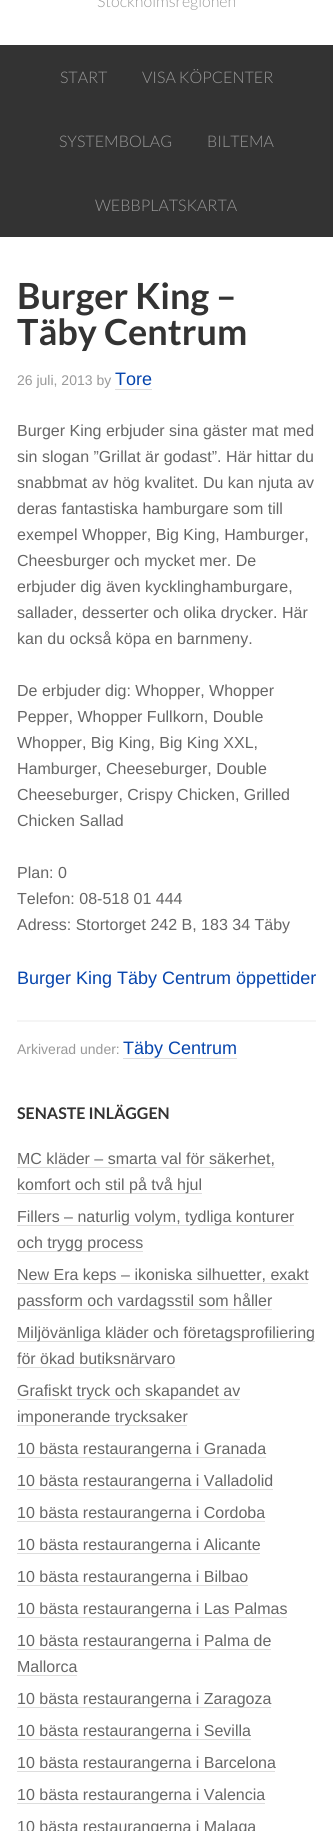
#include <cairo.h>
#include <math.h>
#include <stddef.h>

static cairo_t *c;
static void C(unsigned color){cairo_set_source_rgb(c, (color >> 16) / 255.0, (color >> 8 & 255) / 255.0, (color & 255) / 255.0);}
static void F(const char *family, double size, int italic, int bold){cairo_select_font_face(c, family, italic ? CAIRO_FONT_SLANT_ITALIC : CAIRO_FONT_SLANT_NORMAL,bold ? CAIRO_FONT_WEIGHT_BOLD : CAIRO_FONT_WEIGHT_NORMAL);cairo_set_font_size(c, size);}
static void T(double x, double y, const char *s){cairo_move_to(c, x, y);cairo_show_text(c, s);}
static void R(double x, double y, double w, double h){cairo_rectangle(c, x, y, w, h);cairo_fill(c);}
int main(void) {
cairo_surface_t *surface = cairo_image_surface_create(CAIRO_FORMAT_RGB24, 333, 1831);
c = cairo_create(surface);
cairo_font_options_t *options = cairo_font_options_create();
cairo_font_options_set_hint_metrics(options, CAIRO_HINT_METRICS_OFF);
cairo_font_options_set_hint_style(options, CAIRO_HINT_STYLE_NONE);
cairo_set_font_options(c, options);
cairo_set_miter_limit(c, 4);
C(0xffffff);
cairo_paint(c);
F("Lato Light",16,0,0);
C(0x999999);
T(97,7,"Stockholmsregionen");
C(0x333333);
R(0,45,333,192);
C(0x999999);
T(60,83,"START");
T(142,83,"VISA KÖPCENTER");
T(59,147,"SYSTEMBOLAG");
T(207,147,"BILTEMA");
T(95,211,"WEBBPLATSKARTA");
F("Lato",36,0,1);
C(0x333333);
T(17,309,"Burger King –");
T(17,345,"Täby Centrum");
F("Liberation Sans",14,0,0);
C(0x999999);
T(17,385,"26 juli, 2013 by");
F("Liberation Sans",18,0,0);
C(0x0645ad);
T(115,385,"Tore");
C(0xdddddd);
R(115,389,37,1);
F("Liberation Sans",16,0,0);
C(0x666666);
T(17,436,"Burger King erbjuder sina gäster mat med");
T(17,462,"sin slogan ”Grillat är godast”. Här hittar du");
T(17,488,"snabbmat av hög kvalitet. Du kan njuta av");
T(17,514,"deras fantastiska hamburgare som till");
T(17,540,"exempel Whopper, Big King, Hamburger,");
T(17,566,"Cheesburger och mycket mer. De");
T(17,592,"erbjuder dig även kycklinghamburgare,");
T(17,618,"sallader, desserter och olika drycker. Här");
T(17,644,"kan du också köpa en barnmeny.");
T(17,696,"De erbjuder dig: Whopper, Whopper");
T(17,722,"Pepper, Whopper Fullkorn, Double");
T(17,748,"Whopper, Big King, Big King XXL,");
T(17,774,"Hamburger, Cheeseburger, Double");
T(17,800,"Cheeseburger, Crispy Chicken, Grilled");
T(17,826,"Chicken Sallad");
T(17,878,"Plan: 0");
T(17,904,"Telefon: 08-518 01 444");
T(17,930,"Adress: Stortorget 242 B, 183 34 Täby");
F("Liberation Sans",18,0,0);
C(0x0645ad);
T(17,984,"Burger King Täby Centrum öppettider");
C(0xf5f5f5);
R(17,1020,299,2);
F("Liberation Sans",14,0,0);
C(0x999999);
T(17,1054,"Arkiverad under:");
F("Liberation Sans",18,0,0);
C(0x0645ad);
T(123,1054,"Täby Centrum");
C(0xdddddd);
R(123,1058,114,1);
F("Lato",16,0,1);
C(0x333333);
T(17,1119,"SENASTE INLÄGGEN");
F("Liberation Sans",16,0,0);
C(0x666666);
T(17,1164,"MC kläder – smarta val för säkerhet,");
C(0xdddddd);
R(17,1167,258,1);
R(17,1193,185,1);
C(0x666666);
T(17,1190,"komfort och stil på två hjul");
C(0xdddddd);
R(17,1225,277,1);
C(0x666666);
T(17,1222,"Fillers – naturlig volym, tydliga konturer");
C(0xdddddd);
R(17,1251,126,1);
C(0x666666);
T(17,1248,"och trygg process");
C(0xdddddd);
R(17,1283,291,1);
C(0x666666);
T(17,1280,"New Era keps – ikoniska silhuetter, exakt");
C(0xdddddd);
R(17,1309,255,1);
C(0x666666);
T(17,1306,"passform och vardagsstil som håller");
C(0xdddddd);
R(17,1341,298,1);
C(0x666666);
T(17,1338,"Miljövänliga kläder och företagsprofiliering");
T(17,1364,"för ökad butiksnärvaro");
C(0xdddddd);
R(17,1367,158,1);
R(17,1399,223,1);
C(0x666666);
T(17,1396,"Grafiskt tryck och skapandet av");
C(0xdddddd);
R(17,1425,170,1);
C(0x666666);
T(17,1422,"imponerande trycksaker");
C(0xdddddd);
R(17,1457,249,1);
C(0x666666);
T(17,1454,"10 bästa restaurangerna i Granada");
C(0xdddddd);
R(17,1489,256,1);
C(0x666666);
T(17,1486,"10 bästa restaurangerna i Valladolid");
C(0xdddddd);
R(17,1521,248,1);
C(0x666666);
T(17,1518,"10 bästa restaurangerna i Cordoba");
C(0xdddddd);
R(17,1553,243,1);
C(0x666666);
T(17,1550,"10 bästa restaurangerna i Alicante");
C(0xdddddd);
R(17,1585,231,1);
C(0x666666);
T(17,1582,"10 bästa restaurangerna i Bilbao");
C(0xdddddd);
R(17,1617,270,1);
C(0x666666);
T(17,1614,"10 bästa restaurangerna i Las Palmas");
C(0xdddddd);
R(17,1649,254,1);
C(0x666666);
T(17,1646,"10 bästa restaurangerna i Palma de");
T(17,1672,"Mallorca");
C(0xdddddd);
R(17,1675,60,1);
R(17,1707,254,1);
C(0x666666);
T(17,1704,"10 bästa restaurangerna i Zaragoza");
C(0xdddddd);
R(17,1739,234,1);
C(0x666666);
T(17,1736,"10 bästa restaurangerna i Sevilla");
C(0xdddddd);
R(17,1771,258,1);
C(0x666666);
T(17,1768,"10 bästa restaurangerna i Barcelona");
C(0xdddddd);
R(17,1803,248,1);
C(0x666666);
T(17,1800,"10 bästa restaurangerna i Valencia");
T(17,1832,"10 bästa restaurangerna i Malaga");
cairo_surface_write_to_png(surface, "o.png");
cairo_font_options_destroy(options);
cairo_destroy(c);
cairo_surface_destroy(surface);
return 0;
}
